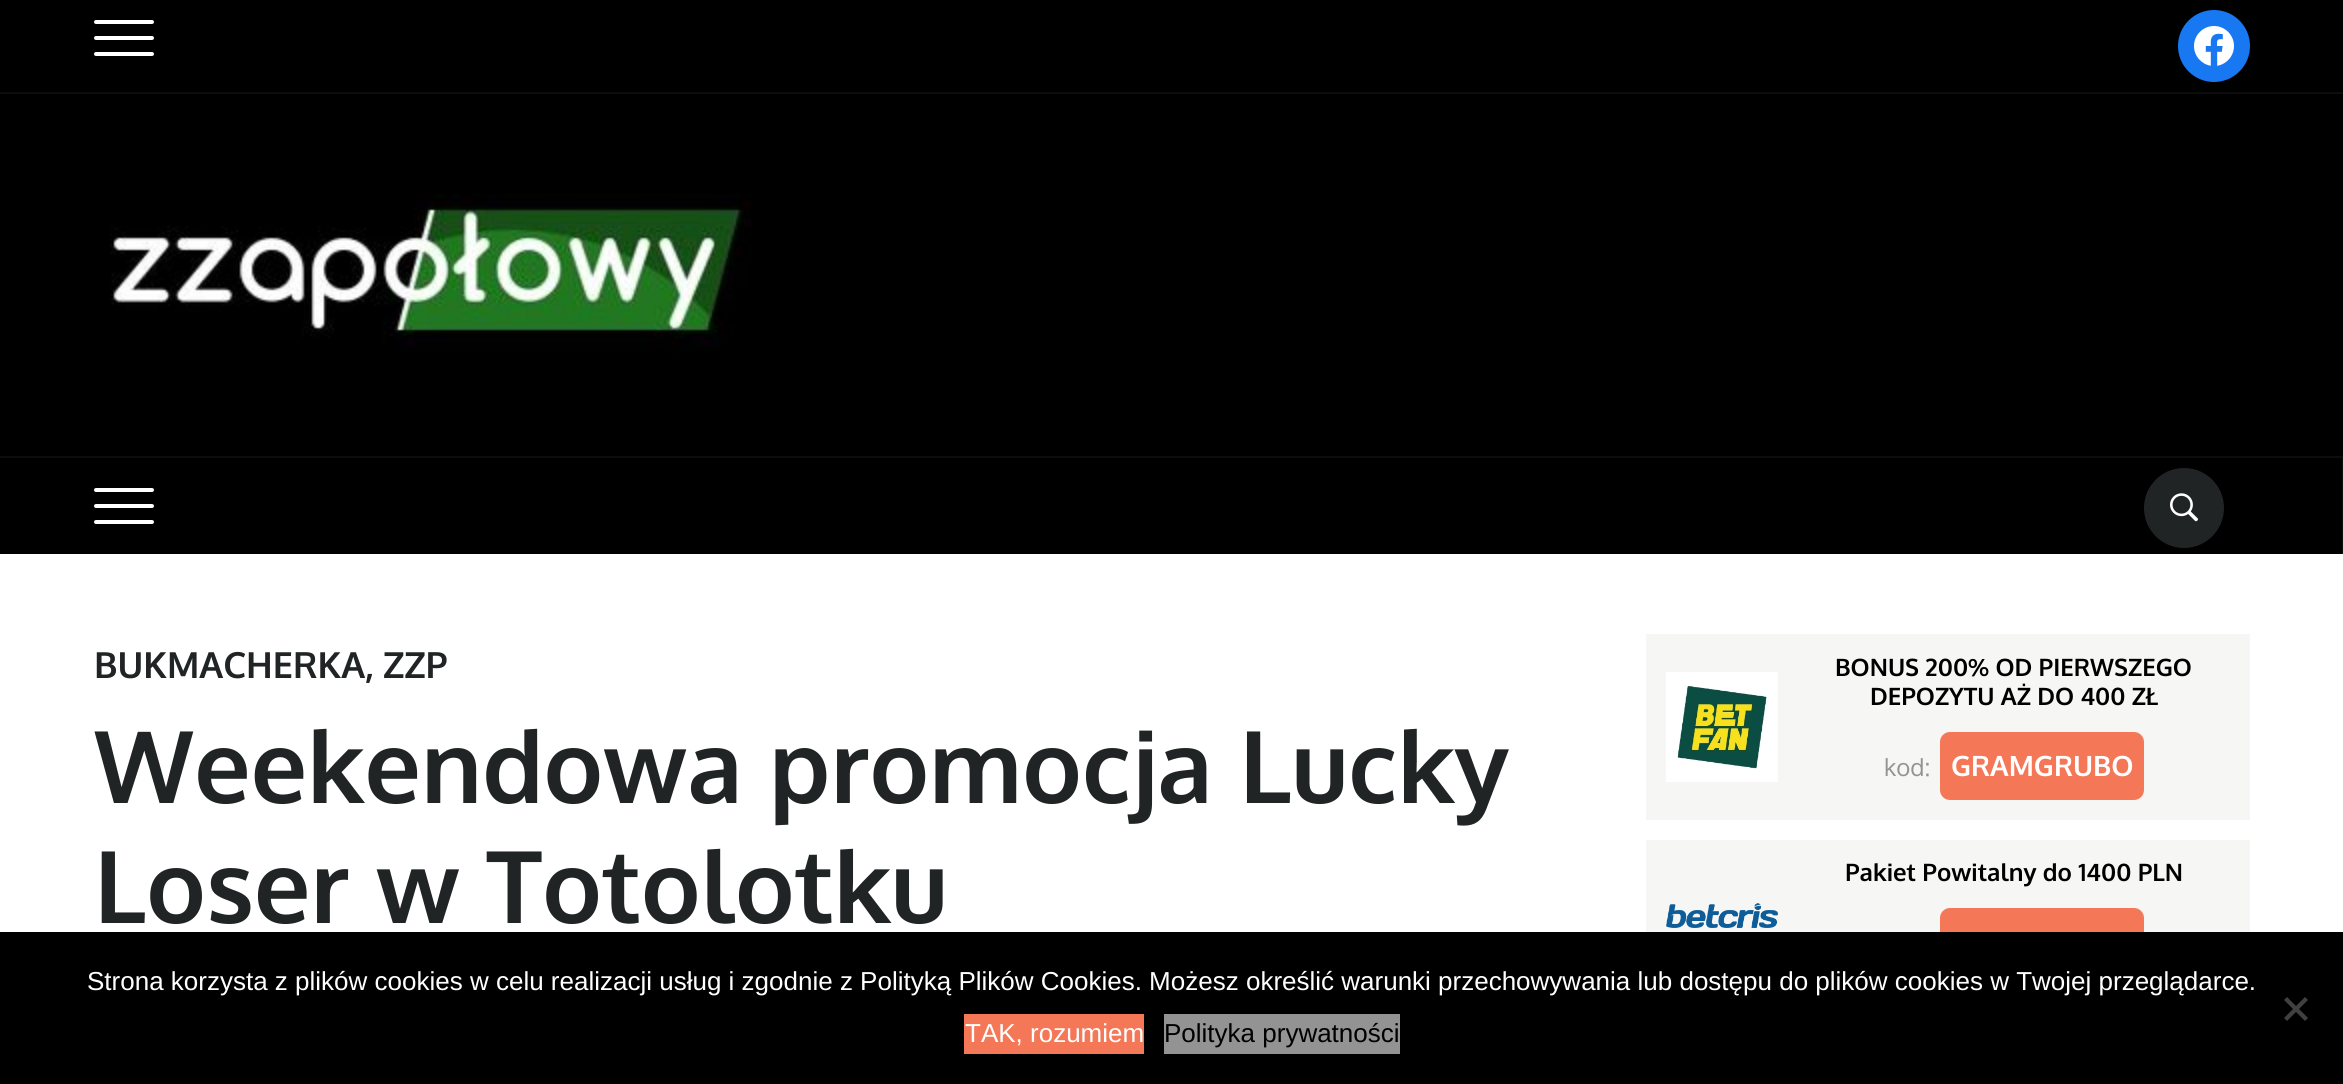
#include <cairo.h>
#include <math.h>
#include <stddef.h>

static cairo_t *c;
static void C(unsigned color){cairo_set_source_rgb(c, (color >> 16) / 255.0, (color >> 8 & 255) / 255.0, (color & 255) / 255.0);}
static void F(const char *family, double size, int italic, int bold){cairo_select_font_face(c, family, italic ? CAIRO_FONT_SLANT_ITALIC : CAIRO_FONT_SLANT_NORMAL,bold ? CAIRO_FONT_WEIGHT_BOLD : CAIRO_FONT_WEIGHT_NORMAL);cairo_set_font_size(c, size);}
static void T(double x, double y, const char *s){cairo_move_to(c, x, y);cairo_show_text(c, s);}
static void R(double x, double y, double w, double h){cairo_rectangle(c, x, y, w, h);cairo_fill(c);}
static void Q(double x, double y, double w, double h, double r){cairo_new_sub_path(c);cairo_arc(c, x + w - r, y + h - r, r, 0, M_PI / 2);cairo_arc(c, x + r, y + h - r, r, M_PI / 2, M_PI);cairo_arc(c, x + r, y + r, r, M_PI, 1.5 * M_PI);cairo_arc(c, x + w - r, y + r, r, 1.5 * M_PI, 2 * M_PI);cairo_close_path(c);}
static void I(const char *path, double x, double y, double w, double h){cairo_surface_t *image = cairo_image_surface_create_from_png(path);cairo_save(c);cairo_set_source_surface(c, image, x, y);cairo_rectangle(c, x, y, w, h);cairo_fill(c);cairo_restore(c);cairo_surface_destroy(image);}
int main(void) {
cairo_surface_t *surface = cairo_image_surface_create(CAIRO_FORMAT_RGB24, 2343, 1084);
c = cairo_create(surface);
cairo_font_options_t *options = cairo_font_options_create();
cairo_font_options_set_hint_metrics(options, CAIRO_HINT_METRICS_OFF);
cairo_font_options_set_hint_style(options, CAIRO_HINT_STYLE_NONE);
cairo_set_font_options(c, options);
cairo_set_miter_limit(c, 4);
C(0xffffff);
cairo_paint(c);
C(0x000000);
R(0,0,2343,554);
C(0x0d0d0d);
R(0,92,2343,2);
C(0xffffff);
Q(94,20,60,4,2);
cairo_fill(c);
Q(94,36,60,4,2);
cairo_fill(c);
Q(94,52,60,4,2);
cairo_fill(c);
C(0x1778f2);
cairo_arc(c,2214,46,36,0,2 * M_PI);
cairo_fill(c);
I("1.png",2194,26,40,40);
I("2.png",110,194,642,159);
C(0x0d0d0d);
R(0,456,2343,2);
R(2342,458,1,96);
C(0xffffff);
Q(94,488,60,4,2);
cairo_fill(c);
Q(94,504,60,4,2);
cairo_fill(c);
Q(94,520,60,4,2);
cairo_fill(c);
C(0x212425);
cairo_arc(c,2184,508,40,0,2 * M_PI);
cairo_fill(c);
I("3.png",2170,493,28,29);
F("Oxygen",36,0,1);
T(94,678,"BUKMACHERKA");
T(365,678,",");
T(383,678,"ZZP");
F("Oxygen",100,0,1);
T(94,803,"Weekendowa promocja Lucky");
T(94,923,"Loser w Totolotku");
C(0xf6f6f4);
R(1646,634,604,186);
I("4.png",1666,672,112,110);
F("Oxygen",24,0,1);
C(0x000000);
T(1835,676,"BONUS 200% OD PIERWSZEGO");
T(1870,705,"DEPOZYTU AŻ DO 400 ZŁ");
F("Oxygen",24,0,0);
C(0x949393);
T(1884,776,"kod:");
C(0xf47857);
Q(1940,732,204,68,10);
cairo_fill(c);
F("Oxygen",28,0,1);
C(0xffffff);
T(1951,776,"GRAMGRUBO");
C(0xf6f6f4);
R(1646,840,604,92);
F("Oxygen",24,0,1);
C(0x000000);
T(1845,881,"Pakiet Powitalny do 1400 PLN");
C(0xf47857);
Q(1940,908,204,68,10);
cairo_fill(c);
I("5.png",1666,903,112,25);
C(0x000000);
R(0,932,2343,152);
F("Liberation Sans",26,0,0);
C(0xffffff);
T(87,990,"Strona korzysta z plików cookies w celu realizacji usług i zgodnie z Polityką Plików Cookies. Możesz określić warunki przechowywania lub dostępu do plików cookies w Twojej przeglądarce.");
C(0x404040);
cairo_new_path(c);
cairo_move_to(c,2305,997);
cairo_line_to(c,2308,1000);
cairo_line_to(c,2287,1021);
cairo_line_to(c,2284,1018);
cairo_close_path(c);
cairo_fill(c);
cairo_new_path(c);
cairo_move_to(c,2284,1000);
cairo_line_to(c,2287,997);
cairo_line_to(c,2308,1018);
cairo_line_to(c,2305,1021);
cairo_close_path(c);
cairo_fill(c);
C(0xf47857);
R(964,1014,180,40);
C(0xffffff);
T(965,1042,"TAK, rozumiem");
C(0x949393);
R(1164,1014,236,40);
C(0x000000);
T(1164,1042,"Polityka prywatności");
cairo_surface_write_to_png(surface, "o.png");
cairo_font_options_destroy(options);
cairo_destroy(c);
cairo_surface_destroy(surface);
return 0;
}
